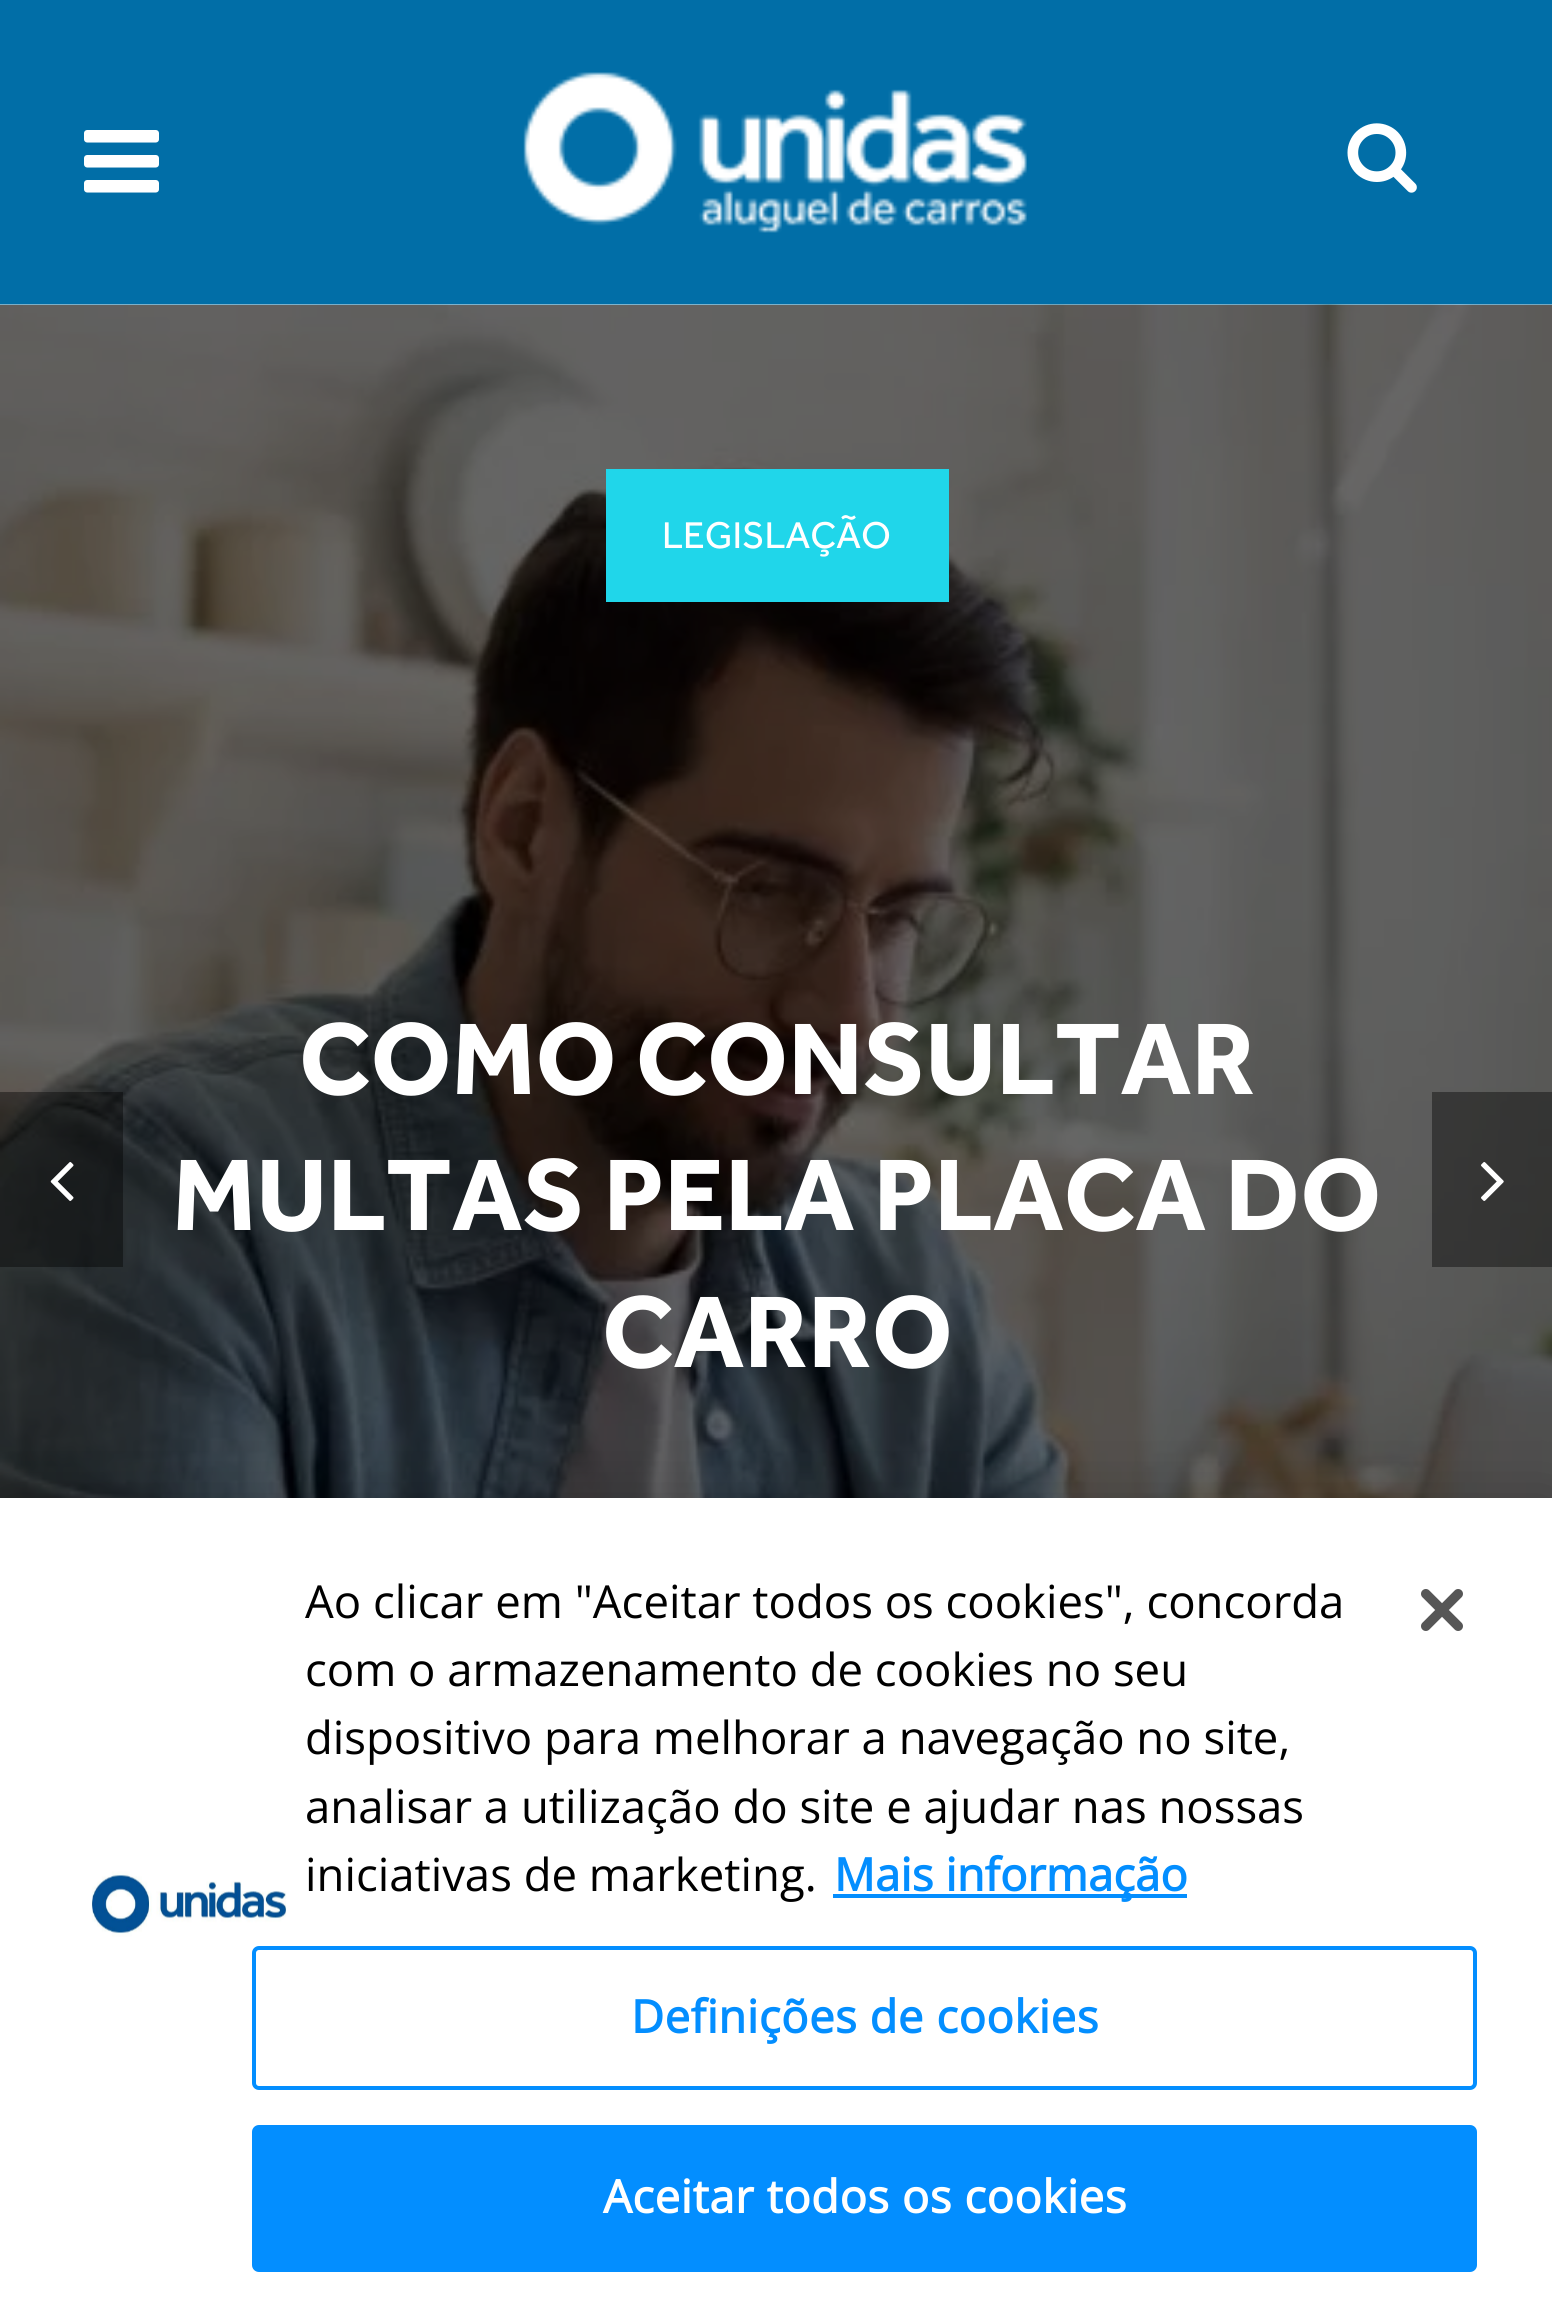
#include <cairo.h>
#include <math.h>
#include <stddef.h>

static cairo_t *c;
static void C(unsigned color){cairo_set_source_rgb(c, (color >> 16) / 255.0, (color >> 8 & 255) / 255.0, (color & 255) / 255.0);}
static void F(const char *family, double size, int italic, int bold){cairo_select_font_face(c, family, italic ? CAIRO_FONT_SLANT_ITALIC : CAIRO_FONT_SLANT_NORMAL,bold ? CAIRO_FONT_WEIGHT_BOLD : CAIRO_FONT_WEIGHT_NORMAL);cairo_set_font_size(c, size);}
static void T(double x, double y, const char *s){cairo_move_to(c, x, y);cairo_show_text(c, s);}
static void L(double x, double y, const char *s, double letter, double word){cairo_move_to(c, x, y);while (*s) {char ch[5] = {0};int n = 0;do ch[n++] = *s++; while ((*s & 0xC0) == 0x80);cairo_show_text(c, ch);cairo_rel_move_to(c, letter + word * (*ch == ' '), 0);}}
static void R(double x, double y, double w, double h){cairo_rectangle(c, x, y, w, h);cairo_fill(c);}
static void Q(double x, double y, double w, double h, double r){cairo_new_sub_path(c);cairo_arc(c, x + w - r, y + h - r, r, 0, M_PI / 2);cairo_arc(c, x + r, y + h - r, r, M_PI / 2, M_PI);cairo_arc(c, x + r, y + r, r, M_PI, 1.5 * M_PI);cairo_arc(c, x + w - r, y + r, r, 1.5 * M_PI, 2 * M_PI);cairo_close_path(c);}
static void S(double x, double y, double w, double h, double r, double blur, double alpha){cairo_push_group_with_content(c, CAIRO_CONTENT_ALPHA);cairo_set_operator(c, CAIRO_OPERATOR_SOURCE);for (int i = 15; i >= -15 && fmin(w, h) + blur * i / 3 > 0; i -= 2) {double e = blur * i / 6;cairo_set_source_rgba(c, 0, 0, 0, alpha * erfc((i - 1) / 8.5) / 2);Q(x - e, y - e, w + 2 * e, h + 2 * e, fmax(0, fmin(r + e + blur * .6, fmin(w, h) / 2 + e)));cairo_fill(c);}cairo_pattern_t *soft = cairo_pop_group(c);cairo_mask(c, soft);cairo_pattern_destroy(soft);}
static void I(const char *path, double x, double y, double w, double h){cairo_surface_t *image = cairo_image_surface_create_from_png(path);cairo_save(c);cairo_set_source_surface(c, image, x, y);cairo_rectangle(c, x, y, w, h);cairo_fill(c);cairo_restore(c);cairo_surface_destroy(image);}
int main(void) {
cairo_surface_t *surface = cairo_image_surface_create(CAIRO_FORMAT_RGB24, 1552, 2304);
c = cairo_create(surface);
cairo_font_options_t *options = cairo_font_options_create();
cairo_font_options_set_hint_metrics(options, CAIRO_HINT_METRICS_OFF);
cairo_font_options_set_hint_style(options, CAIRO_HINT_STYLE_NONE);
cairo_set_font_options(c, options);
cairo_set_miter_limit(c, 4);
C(0x016ea7);
cairo_paint(c);
I("1.png",84,130,75,63);
I("2.png",523,72,504,161);
I("3.png",1347,123,70,70);
I("5.png",0,304,1552,1194);
cairo_set_source_rgba(c,0,0,0,0.4);
R(0,1092,123,175);
I("4.png",50,1162,24,39);
C(0x20d6ea);
R(606,469,343,133);
F("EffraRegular",38.5,0,0);
C(0xffffff);
T(662,548,"LEGISLAÇÃO");
F("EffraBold",105,0,1);
T(299,1094,"COMO CONSULTAR");
T(172,1230,"MULTAS PELA PLACA DO");
T(602,1367,"CARRO");
cairo_set_source_rgba(c,0,0,0,0.4);
R(1432,1092,120,175);
I("6.png",1481,1162,23,39);
C(0x000000);
S(0,1498,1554,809,0,31.5,.2);
C(0xffffff);
R(0,1498,1552,806);
I("7.png",91,1871,196,66);
F("Open Sans",45.5,0,0);
C(0x000000);
T(305,1618,"Ao clicar em \"Aceitar todos os cookies\", concorda");
T(305,1686,"com o armazenamento de cookies no seu");
T(305,1754,"dispositivo para melhorar a navegação no site,");
T(305,1823,"analisar a utilização do site e ajudar nas nossas");
T(305,1891,"iniciativas de marketing.");
C(0x038eff);
R(833,1894,354,4);
F("Open Sans",45.5,0,1);
T(834,1891,"Mais informação");
Q(254,1948,1221,140,5);
cairo_set_line_width(c,4);
cairo_stroke(c);
L(631,2033,"Definições de cookies",.5,0);
Q(254,2127,1221,143,5);
cairo_fill_preserve(c);
cairo_stroke(c);
C(0xffffff);
L(603,2213,"Aceitar todos os cookies",.5,0);
I("8.png",1421,1589,42,42);
cairo_surface_write_to_png(surface, "o.png");
cairo_font_options_destroy(options);
cairo_destroy(c);
cairo_surface_destroy(surface);
return 0;
}
